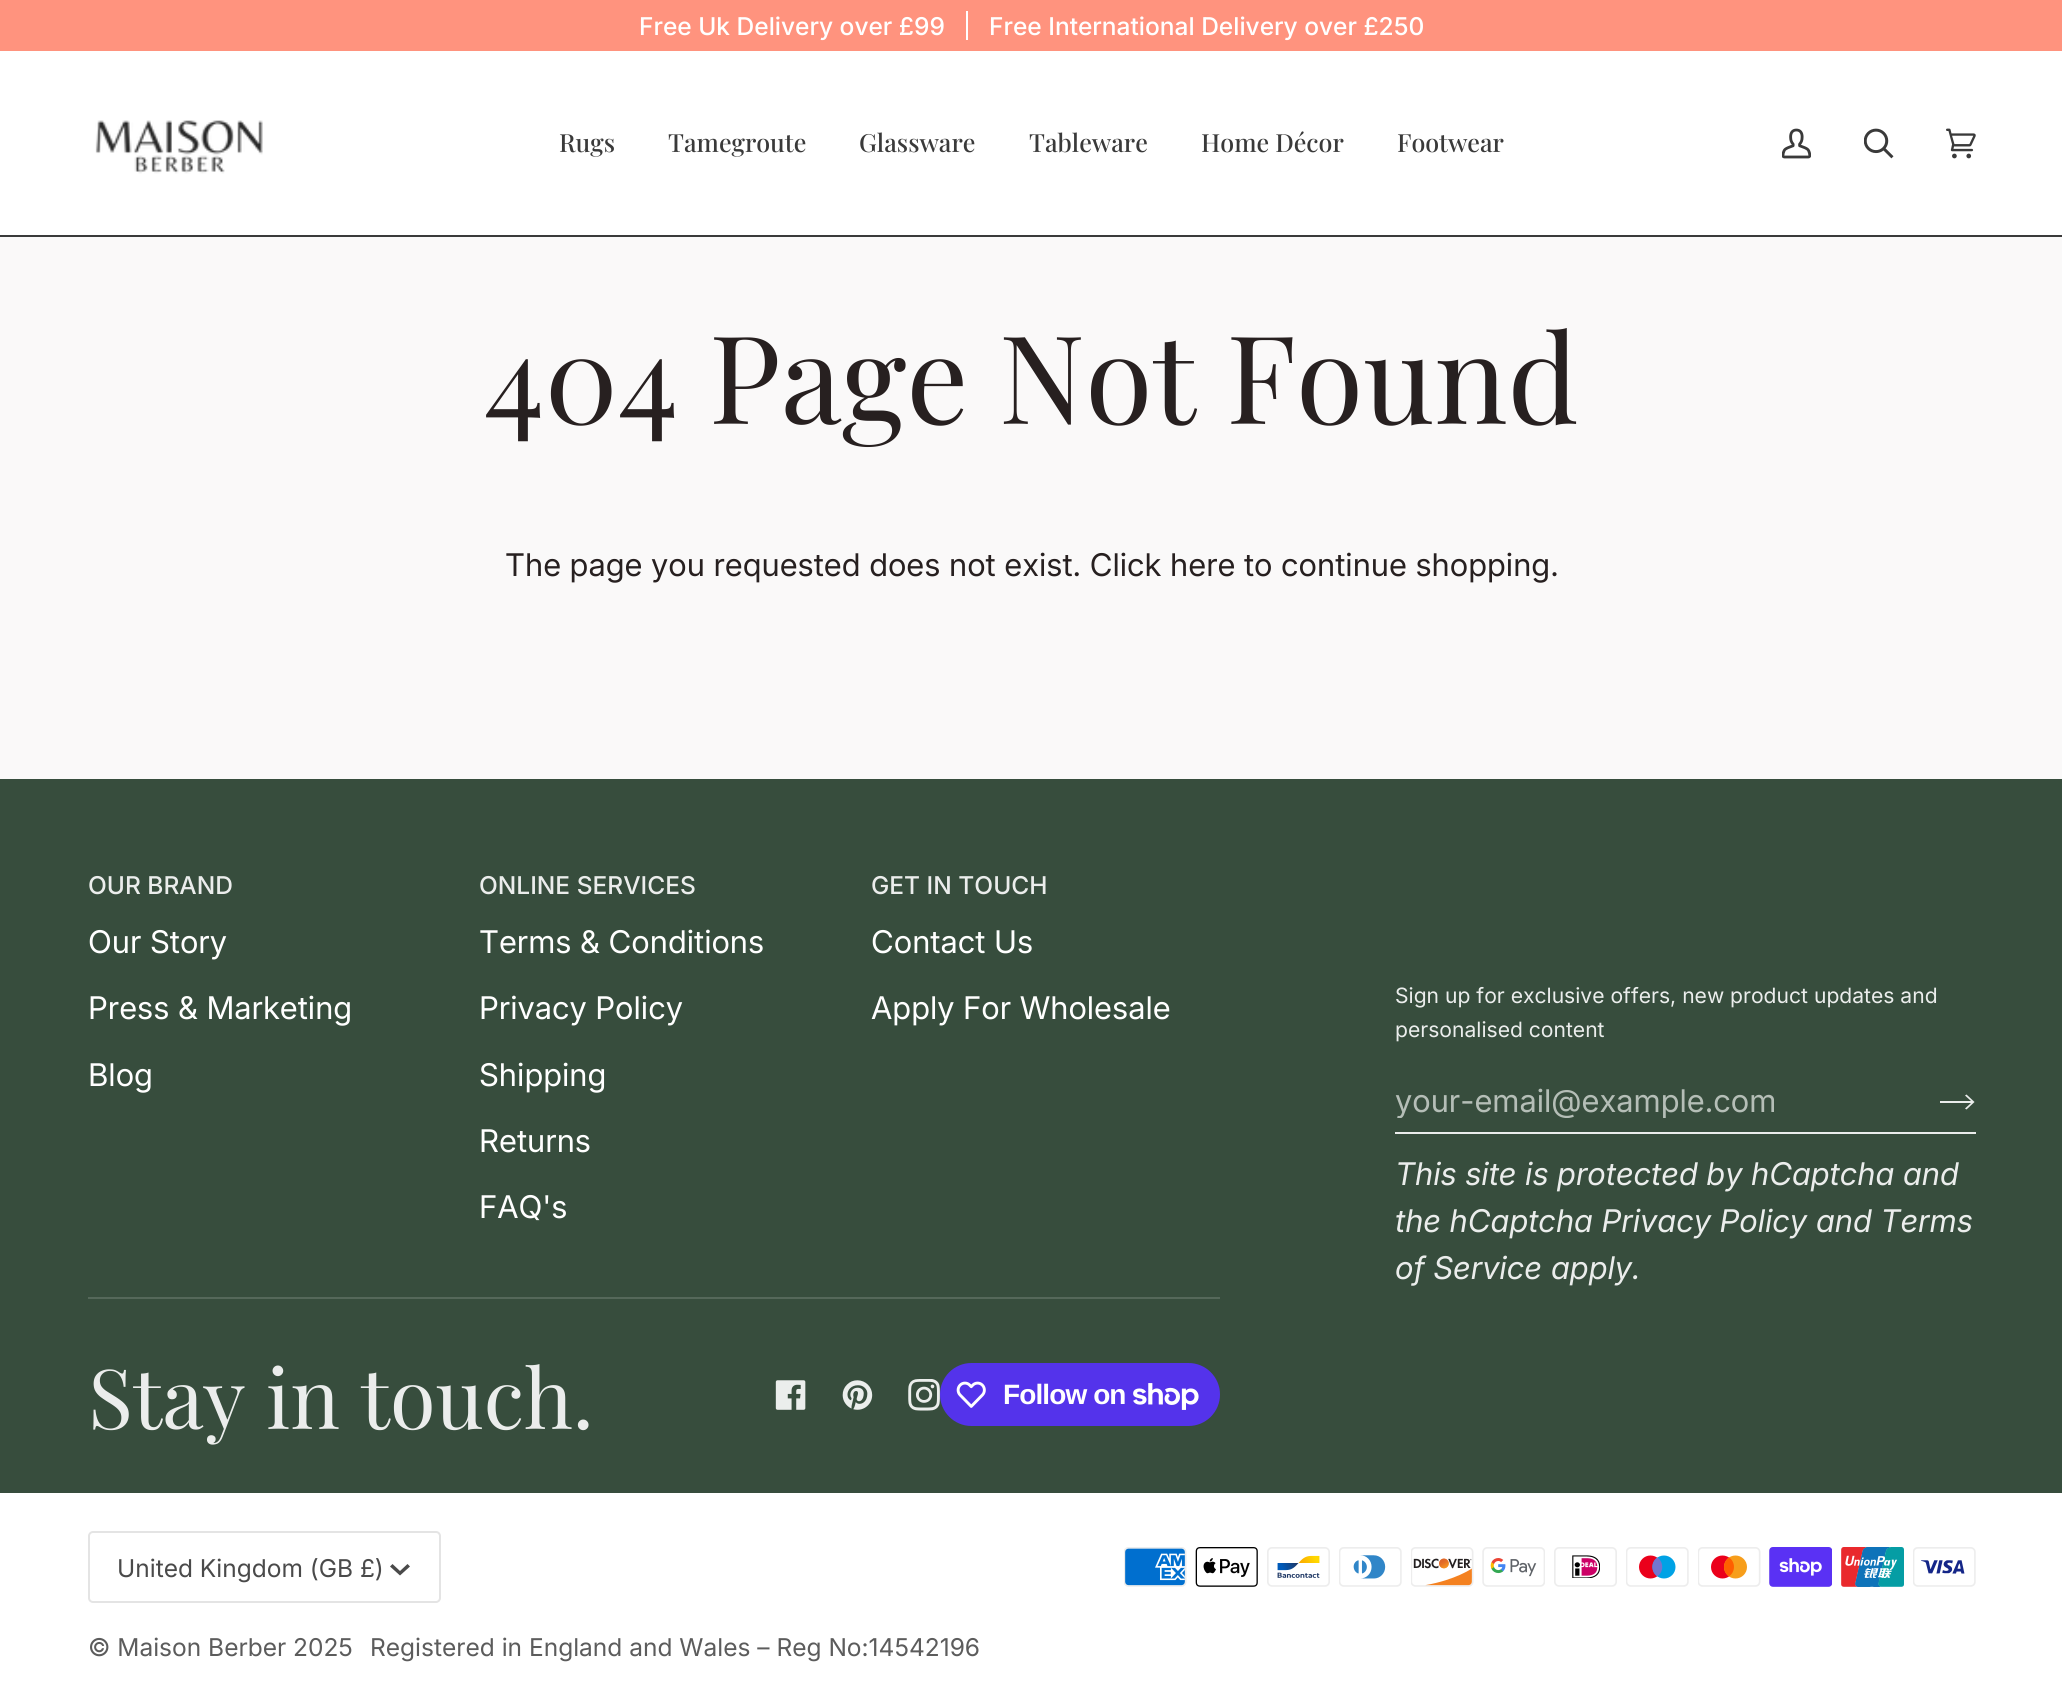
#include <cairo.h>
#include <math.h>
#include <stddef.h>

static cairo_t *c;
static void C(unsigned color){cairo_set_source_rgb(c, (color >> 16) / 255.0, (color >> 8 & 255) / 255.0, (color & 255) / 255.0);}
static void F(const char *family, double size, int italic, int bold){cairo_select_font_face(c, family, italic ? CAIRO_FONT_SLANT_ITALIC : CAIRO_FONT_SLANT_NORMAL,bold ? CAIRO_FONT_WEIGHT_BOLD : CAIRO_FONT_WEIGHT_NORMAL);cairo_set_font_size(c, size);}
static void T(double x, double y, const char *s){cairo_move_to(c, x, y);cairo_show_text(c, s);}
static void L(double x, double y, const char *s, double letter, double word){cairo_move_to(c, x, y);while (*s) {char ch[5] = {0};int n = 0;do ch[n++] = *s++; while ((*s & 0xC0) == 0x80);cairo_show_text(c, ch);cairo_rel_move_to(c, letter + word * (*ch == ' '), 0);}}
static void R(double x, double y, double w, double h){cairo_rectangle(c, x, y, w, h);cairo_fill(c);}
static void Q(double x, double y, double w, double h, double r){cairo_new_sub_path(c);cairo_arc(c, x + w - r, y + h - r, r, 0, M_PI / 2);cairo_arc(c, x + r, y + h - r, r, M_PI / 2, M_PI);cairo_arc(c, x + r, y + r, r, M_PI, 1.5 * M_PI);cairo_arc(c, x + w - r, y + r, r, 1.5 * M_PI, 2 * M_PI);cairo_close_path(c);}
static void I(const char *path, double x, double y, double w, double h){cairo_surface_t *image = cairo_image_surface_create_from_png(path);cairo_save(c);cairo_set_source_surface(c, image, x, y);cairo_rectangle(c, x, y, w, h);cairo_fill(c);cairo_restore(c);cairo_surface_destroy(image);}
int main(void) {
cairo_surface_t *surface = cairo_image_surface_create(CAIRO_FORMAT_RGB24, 2062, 1684);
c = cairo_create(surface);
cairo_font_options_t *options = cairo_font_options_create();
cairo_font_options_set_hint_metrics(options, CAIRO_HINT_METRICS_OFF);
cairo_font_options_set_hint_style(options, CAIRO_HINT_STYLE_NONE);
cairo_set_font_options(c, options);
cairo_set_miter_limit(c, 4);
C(0xffffff);
cairo_paint(c);
C(0xff937e);
R(0,0,2062,51);
F("Inter Medium",24.5,0,0);
C(0xffffff);
T(639,35,"Free Uk Delivery over £99");
R(966,11,2,29);
T(989,35,"Free International Delivery over £250");
C(0x3a3a3a);
R(0,235,2062,2);
I("1.png",95,120,168,54);
F("Playfair Display Medium",25,0,0);
T(559,152,"Rugs");
T(668,152,"Tamegroute");
T(859,152,"Glassware");
T(1029,152,"Tableware");
T(1201,152,"Home Décor");
T(1397,152,"Footwear");
I("2.png",1782,128,29,31);
I("3.png",1864,128,30,31);
I("4.png",1946,128,30,31);
C(0xfaf9f9);
R(0,237,2062,542);
F("Playfair Display",122.5,0,0);
C(0x272020);
T(484,424,"404 Page Not Found");
F("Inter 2",31.25,0,0);
T(505,576,"The page you requested does not exist. Click here to continue shopping.");
C(0x374d3d);
R(0,779,2062,714);
F("Inter Medium",24.5,0,0);
C(0xebedec);
T(88,894,"OUR BRAND");
F("Inter 2",31.25,0,0);
C(0xffffff);
T(88,953,"Our Story");
T(88,1019,"Press & Marketing");
T(88,1086,"Blog");
F("Inter Medium",24.5,0,0);
C(0xebedec);
T(479,894,"ONLINE SERVICES");
F("Inter 2",31.25,0,0);
C(0xffffff);
T(479,953,"Terms & Conditions");
T(479,1019,"Privacy Policy");
T(479,1086,"Shipping");
T(479,1152,"Returns");
T(479,1218,"FAQ's");
F("Inter Medium",24.5,0,0);
C(0xebedec);
T(871,894,"GET IN TOUCH");
F("Inter 2",31.25,0,0);
C(0xffffff);
T(871,953,"Contact Us");
T(871,1019,"Apply For Wholesale");
C(0x55685a);
R(88,1297,1132,2);
F("Playfair Display",83,0,0);
C(0xebedec);
T(88,1429,"Stay in touch.");
I("5.png",775,1380,31,30);
I("6.png",842,1380,31,30);
I("7.png",908,1379,32,32);
C(0x5433eb);
Q(940,1363,280,63,31.5);
cairo_fill(c);
I("8.png",956,1381,30,27);
F("Liberation Sans",28,0,1);
C(0xffffff);
L(1003,1404,"Follow on",-.9,0);
I("9.png",1133,1383,66,27);
F("Inter",21.1,0,0);
C(0xebedec);
T(1395,1003,"Sign up for exclusive offers, new product updates and");
T(1395,1037,"personalised content");
R(1395,1132,581,2);
cairo_save(c);
cairo_rectangle(c,1395,1082,471,36);
cairo_clip(c);
F("Inter 2",31.25,0,0);
C(0xb5beb7);
T(1395,1112,"your-email@example.com");
cairo_restore(c);
cairo_new_path(c);
cairo_move_to(c,1965,1095.5);
cairo_line_to(c,1966.5,1094.5);
cairo_line_to(c,1974.5,1102);
cairo_line_to(c,1966.5,1109.5);
cairo_line_to(c,1965,1108.5);
cairo_line_to(c,1971,1103);
cairo_line_to(c,1940,1103);
cairo_line_to(c,1940,1101);
cairo_line_to(c,1971,1101);
cairo_close_path(c);
cairo_fill(c);
F("Inter",31.25,1,0);
T(1395,1185,"This site is protected by hCaptcha and");
T(1395,1232,"the hCaptcha Privacy Policy");
T(1816,1232,"and Terms");
T(1395,1279,"of Service");
T(1551,1279,"apply.");
Q(89,1532,351,70,4);
C(0xe4e4e4);
cairo_stroke(c);
F("Inter",24.5,0,0);
C(0x4a4a4a);
T(117,1577,"United Kingdom (GB £)");
cairo_set_fill_rule(c,CAIRO_FILL_RULE_EVEN_ODD);
cairo_new_path(c);
cairo_move_to(c,390,1566.5);
cairo_line_to(c,392.5,1564);
cairo_line_to(c,400,1571);
cairo_line_to(c,407.5,1564);
cairo_line_to(c,410,1566.5);
cairo_line_to(c,400,1575.5);
cairo_close_path(c);
cairo_fill(c);
I("10.png",1124,1547,63,40);
I("11.png",1195,1547,63,40);
I("12.png",1267,1547,63,40);
I("13.png",1339,1547,63,40);
I("14.png",1411,1547,63,40);
I("15.png",1482,1547,63,40);
I("16.png",1554,1547,63,40);
I("17.png",1626,1547,63,40);
I("18.png",1698,1547,63,40);
I("19.png",1769,1547,63,40);
I("20.png",1841,1547,63,40);
I("21.png",1913,1547,63,40);
C(0x5c5c5c);
T(88,1656,"© Maison Berber");
T(293,1656,"2025");
T(370,1656,"Registered in England and Wales – Reg No:14542196");
cairo_surface_write_to_png(surface, "o.png");
cairo_font_options_destroy(options);
cairo_destroy(c);
cairo_surface_destroy(surface);
return 0;
}
